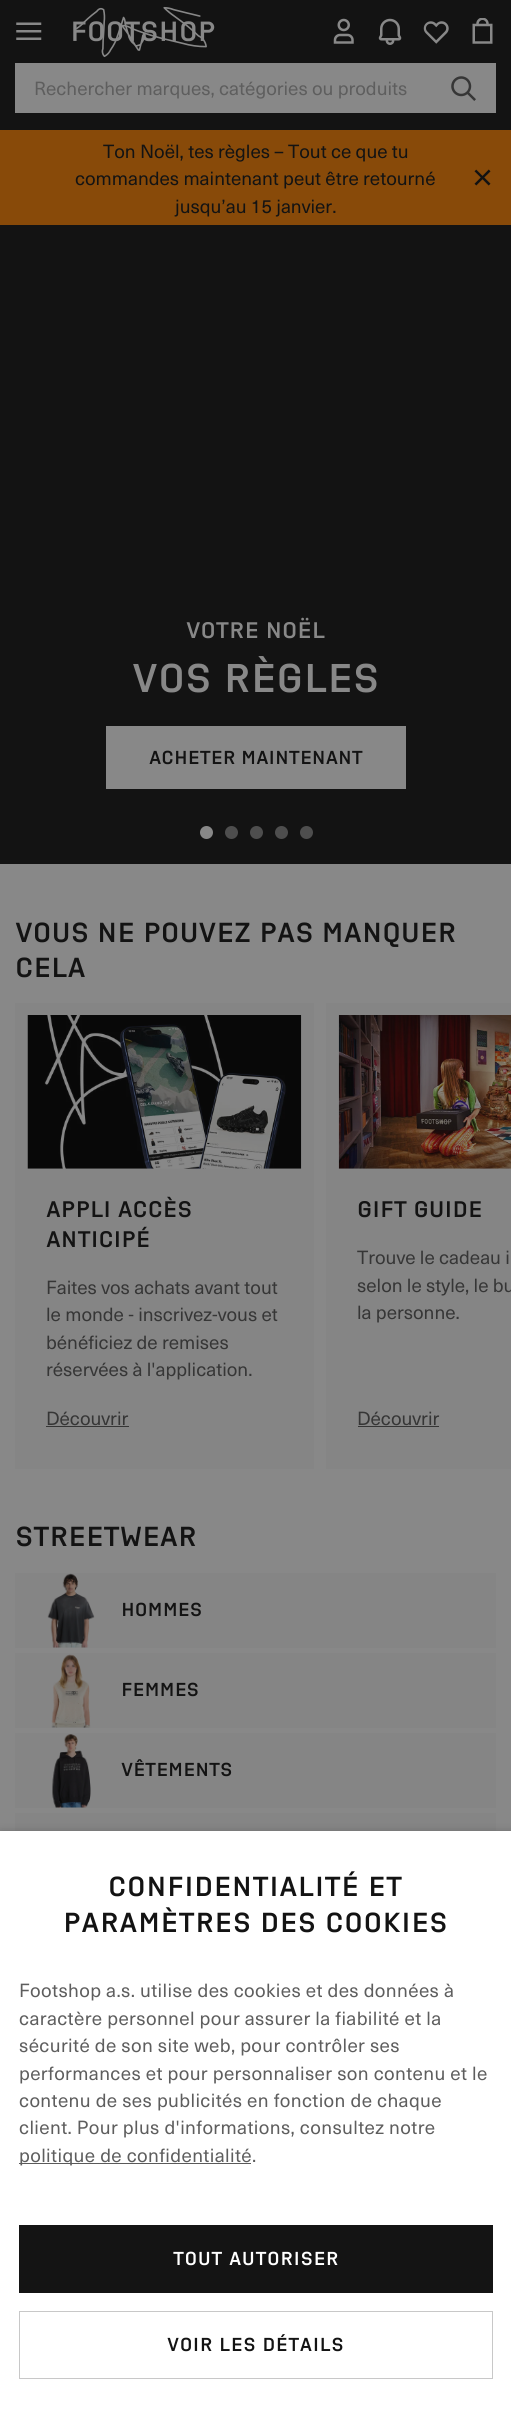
#include <cairo.h>
#include <math.h>
#include <stddef.h>

static cairo_t *c;
static void C(unsigned color){cairo_set_source_rgb(c, (color >> 16) / 255.0, (color >> 8 & 255) / 255.0, (color & 255) / 255.0);}
static void F(const char *family, double size, int italic, int bold){cairo_select_font_face(c, family, italic ? CAIRO_FONT_SLANT_ITALIC : CAIRO_FONT_SLANT_NORMAL,bold ? CAIRO_FONT_WEIGHT_BOLD : CAIRO_FONT_WEIGHT_NORMAL);cairo_set_font_size(c, size);}
static void T(double x, double y, const char *s){cairo_move_to(c, x, y);cairo_show_text(c, s);}
static void L(double x, double y, const char *s, double letter, double word){cairo_move_to(c, x, y);while (*s) {char ch[5] = {0};int n = 0;do ch[n++] = *s++; while ((*s & 0xC0) == 0x80);cairo_show_text(c, ch);cairo_rel_move_to(c, letter + word * (*ch == ' '), 0);}}
static void R(double x, double y, double w, double h){cairo_rectangle(c, x, y, w, h);cairo_fill(c);}
static void Q(double x, double y, double w, double h, double r){cairo_new_sub_path(c);cairo_arc(c, x + w - r, y + h - r, r, 0, M_PI / 2);cairo_arc(c, x + r, y + h - r, r, M_PI / 2, M_PI);cairo_arc(c, x + r, y + r, r, M_PI, 1.5 * M_PI);cairo_arc(c, x + w - r, y + r, r, 1.5 * M_PI, 2 * M_PI);cairo_close_path(c);}
static void S(double x, double y, double w, double h, double r, double blur, double alpha){cairo_push_group_with_content(c, CAIRO_CONTENT_ALPHA);cairo_set_operator(c, CAIRO_OPERATOR_SOURCE);for (int i = 15; i >= -15 && fmin(w, h) + blur * i / 3 > 0; i -= 2) {double e = blur * i / 6;cairo_set_source_rgba(c, 0, 0, 0, alpha * erfc((i - 1) / 8.5) / 2);Q(x - e, y - e, w + 2 * e, h + 2 * e, fmax(0, fmin(r + e + blur * .6, fmin(w, h) / 2 + e)));cairo_fill(c);}cairo_pattern_t *soft = cairo_pop_group(c);cairo_mask(c, soft);cairo_pattern_destroy(soft);}
static void I(const char *path, double x, double y, double w, double h){cairo_surface_t *image = cairo_image_surface_create_from_png(path);cairo_save(c);cairo_set_source_surface(c, image, x, y);cairo_rectangle(c, x, y, w, h);cairo_fill(c);cairo_restore(c);cairo_surface_destroy(image);}
int main(void) {
cairo_surface_t *surface = cairo_image_surface_create(CAIRO_FORMAT_RGB24, 511, 2435);
c = cairo_create(surface);
cairo_font_options_t *options = cairo_font_options_create();
cairo_font_options_set_hint_metrics(options, CAIRO_HINT_METRICS_OFF);
cairo_font_options_set_hint_style(options, CAIRO_HINT_STYLE_NONE);
cairo_set_font_options(c, options);
cairo_set_miter_limit(c, 4);
C(0x888888);
cairo_paint(c);
C(0x131313);
R(0,0,511,130);
I("1.png",16,22,26,18);
I("3.png",73,21,142,21);
I("2.png",76,6,131,52);
I("4.png",333,18,21,26);
I("5.png",378,18,24,27);
I("6.png",423,21,26,23);
I("7.png",472,18,21,26);
C(0x888888);
R(15,63,481,50);
F("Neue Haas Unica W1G",18.75,0,0);
C(0x5e5e5e);
T(34,95,"Rechercher marques, catégories ou produits");
I("8.png",451,76,25,25);
C(0x884a09);
R(0,130,511,95);
C(0x131313);
T(103,158,"Ton Noël, tes règles – Tout ce que tu");
T(75,185,"commandes maintenant peut être retourné");
T(175,213,"jusqu’au 15 janvier.");
I("9.png",474,169,17,17);
R(0,225,511,639);
F("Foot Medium",22.5,0,0);
C(0x888888);
T(186,638,"VOTRE NOËL");
F("Foot Medium",40,0,0);
T(132,692,"VOS RÈGLES");
R(106,726,300,63);
F("Foot Medium",18.75,0,0);
C(0x131313);
T(149,764,"ACHETER MAINTENANT");
C(0x888888);
cairo_new_path(c);
cairo_arc(c,206.5,832.5,6.5,0,2 * M_PI);
cairo_fill(c);
C(0x4e4e4e);
cairo_arc(c,231.5,832.5,6.5,0,2 * M_PI);
cairo_fill(c);
cairo_arc(c,256.5,832.5,6.5,0,2 * M_PI);
cairo_fill(c);
cairo_arc(c,281.5,832.5,6.5,0,2 * M_PI);
cairo_fill(c);
cairo_arc(c,306.5,832.5,6.5,0,2 * M_PI);
cairo_fill(c);
F("Foot Medium",27.5,0,0);
C(0x131313);
T(15,942,"VOUS NE POUVEZ PAS MANQUER");
T(15,977,"CELA");
C(0x858585);
R(15,1003,299,466);
I("10.png",27,1015,275,154);
F("Foot Medium",22.5,0,0);
C(0x131313);
T(46,1217,"APPLI ACCÈS");
T(46,1247,"ANTICIPÉ");
F("Neue Haas Unica W1G",18.75,0,0);
C(0x363636);
T(46,1294,"Faites vos achats avant tout");
T(46,1321,"le monde - inscrivez-vous et");
T(46,1349,"bénéficiez de remises");
T(46,1376,"réservées à l'application.");
T(46,1425,"Découvrir");
R(46,1426,83,1);
C(0x858585);
R(326,1003,185,466);
I("11.png",338,1015,173,154);
F("Foot Medium",22.5,0,0);
C(0x131313);
T(357,1217,"GIFT GUIDE");
F("Neue Haas Unica W1G",18.75,0,0);
C(0x363636);
T(357,1264,"Trouve le cadeau i");
T(357,1292,"selon le style, le bu");
T(357,1319,"la personne.");
T(357,1425,"Découvrir");
R(358,1426,81,1);
F("Foot Medium",27.5,0,0);
C(0x131313);
T(15,1546,"STREETWEAR");
C(0x858585);
R(15,1573,481,75);
I("12.png",47,1573,48,75);
F("Foot Medium",18.75,0,0);
C(0x131313);
T(121,1616,"HOMMES");
C(0x858585);
R(15,1653,481,75);
I("13.png",51,1654,40,74);
C(0x131313);
T(121,1696,"FEMMES");
C(0x858585);
R(15,1733,481,75);
I("14.png",52,1734,39,74);
C(0x131313);
T(121,1776,"VÊTEMENTS");
C(0x858585);
R(15,1813,481,18);
C(0x000000);
S(1,1834,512,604,0,5,.35);
C(0xffffff);
R(0,1831,511,604);
F("Foot Medium",27.5,0,0);
C(0x131313);
L(108,1896,"CONFIDENTIALITÉ ET",.5,0);
L(63,1932,"PARAMÈTRES DES COOKIES",.5,0);
F("Neue Haas Unica W1G",18.75,0,0);
C(0x5e5e5e);
L(19,1997,"Footshop a.s. utilise des cookies et des données à",.38,0);
L(19,2025,"caractère personnel pour assurer la fiabilité et la",.38,0);
L(19,2052,"sécurité de son site web, pour contrôler ses",.38,0);
L(19,2080,"performances et pour personnaliser son contenu et le",.38,0);
L(19,2107,"contenu de ses publicités en fonction de chaque",.38,0);
L(19,2134,"client. Pour plus d'informations, consultez notre",.38,0);
C(0x5a5a5a);
R(19,2163,232,1);
C(0x5e5e5e);
L(19,2162,"politique de confidentialité.",.38,0);
C(0x141414);
R(19,2225,474,68);
F("Foot Medium",18.75,0,0);
C(0xffffff);
L(173,2265,"TOUT AUTORISER",.5,0);
cairo_rectangle(c,19.5,2311.5,473,67);
C(0xc8c8c8);
cairo_set_line_width(c,1);
cairo_stroke(c);
C(0x131313);
L(167,2351,"VOIR LES DÉTAILS",.5,0);
cairo_surface_write_to_png(surface, "o.png");
cairo_font_options_destroy(options);
cairo_destroy(c);
cairo_surface_destroy(surface);
return 0;
}
